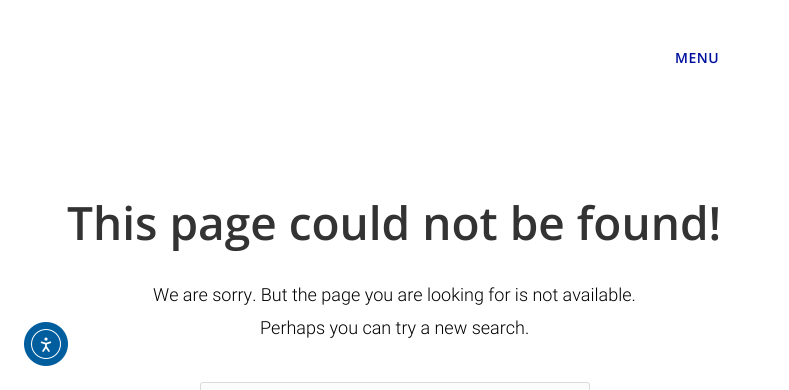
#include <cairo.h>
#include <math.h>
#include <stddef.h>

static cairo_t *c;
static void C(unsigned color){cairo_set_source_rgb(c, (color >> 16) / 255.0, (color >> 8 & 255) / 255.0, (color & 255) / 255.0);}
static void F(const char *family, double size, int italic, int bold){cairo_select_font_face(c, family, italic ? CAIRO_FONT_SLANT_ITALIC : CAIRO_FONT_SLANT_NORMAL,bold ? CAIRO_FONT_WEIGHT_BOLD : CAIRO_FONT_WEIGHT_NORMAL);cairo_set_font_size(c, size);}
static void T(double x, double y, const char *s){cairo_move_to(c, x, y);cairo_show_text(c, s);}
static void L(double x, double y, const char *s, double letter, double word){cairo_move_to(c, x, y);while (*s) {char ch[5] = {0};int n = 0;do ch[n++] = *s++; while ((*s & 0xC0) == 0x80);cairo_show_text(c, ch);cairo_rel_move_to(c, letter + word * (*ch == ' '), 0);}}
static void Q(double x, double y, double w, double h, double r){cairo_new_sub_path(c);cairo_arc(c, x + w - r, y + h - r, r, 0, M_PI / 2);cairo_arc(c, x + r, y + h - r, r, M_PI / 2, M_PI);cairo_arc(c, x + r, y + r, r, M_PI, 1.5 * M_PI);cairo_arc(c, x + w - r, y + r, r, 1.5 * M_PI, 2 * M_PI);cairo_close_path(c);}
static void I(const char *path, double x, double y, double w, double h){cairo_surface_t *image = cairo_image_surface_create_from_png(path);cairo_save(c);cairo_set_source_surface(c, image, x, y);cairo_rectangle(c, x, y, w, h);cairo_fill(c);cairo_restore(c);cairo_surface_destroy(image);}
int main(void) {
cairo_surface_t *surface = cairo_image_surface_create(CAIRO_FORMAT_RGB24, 789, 390);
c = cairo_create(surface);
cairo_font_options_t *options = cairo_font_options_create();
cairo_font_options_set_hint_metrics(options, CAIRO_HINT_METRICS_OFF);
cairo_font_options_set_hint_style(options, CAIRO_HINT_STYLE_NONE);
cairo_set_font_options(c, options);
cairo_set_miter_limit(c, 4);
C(0xffffff);
cairo_paint(c);
F("Open Sans SemiBold",14,0,0);
C(0x000e9e);
L(675,63,"MENU",.5,0);
F("Open Sans SemiBold",46,0,0);
C(0x333333);
T(67,240,"This page could not be found!");
F("Roboto Light",18,0,0);
C(0x000000);
T(153,301,"We are sorry. But the page you are looking for is not available.");
T(260,334,"Perhaps you can try a new search.");
C(0xfcfcfc);
Q(200.5,382.5,389,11,2.5);
cairo_fill_preserve(c);
C(0xdbdbdb);
cairo_set_line_width(c,1);
cairo_stroke(c);
C(0x005d9e);
cairo_arc(c,46,344,22,0,2 * M_PI);
cairo_fill(c);
cairo_arc(c,46,344,14.5,0,2 * M_PI);
C(0xffffff);
cairo_stroke(c);
I("1.png",40,337,12,15);
cairo_surface_write_to_png(surface, "o.png");
cairo_font_options_destroy(options);
cairo_destroy(c);
cairo_surface_destroy(surface);
return 0;
}
